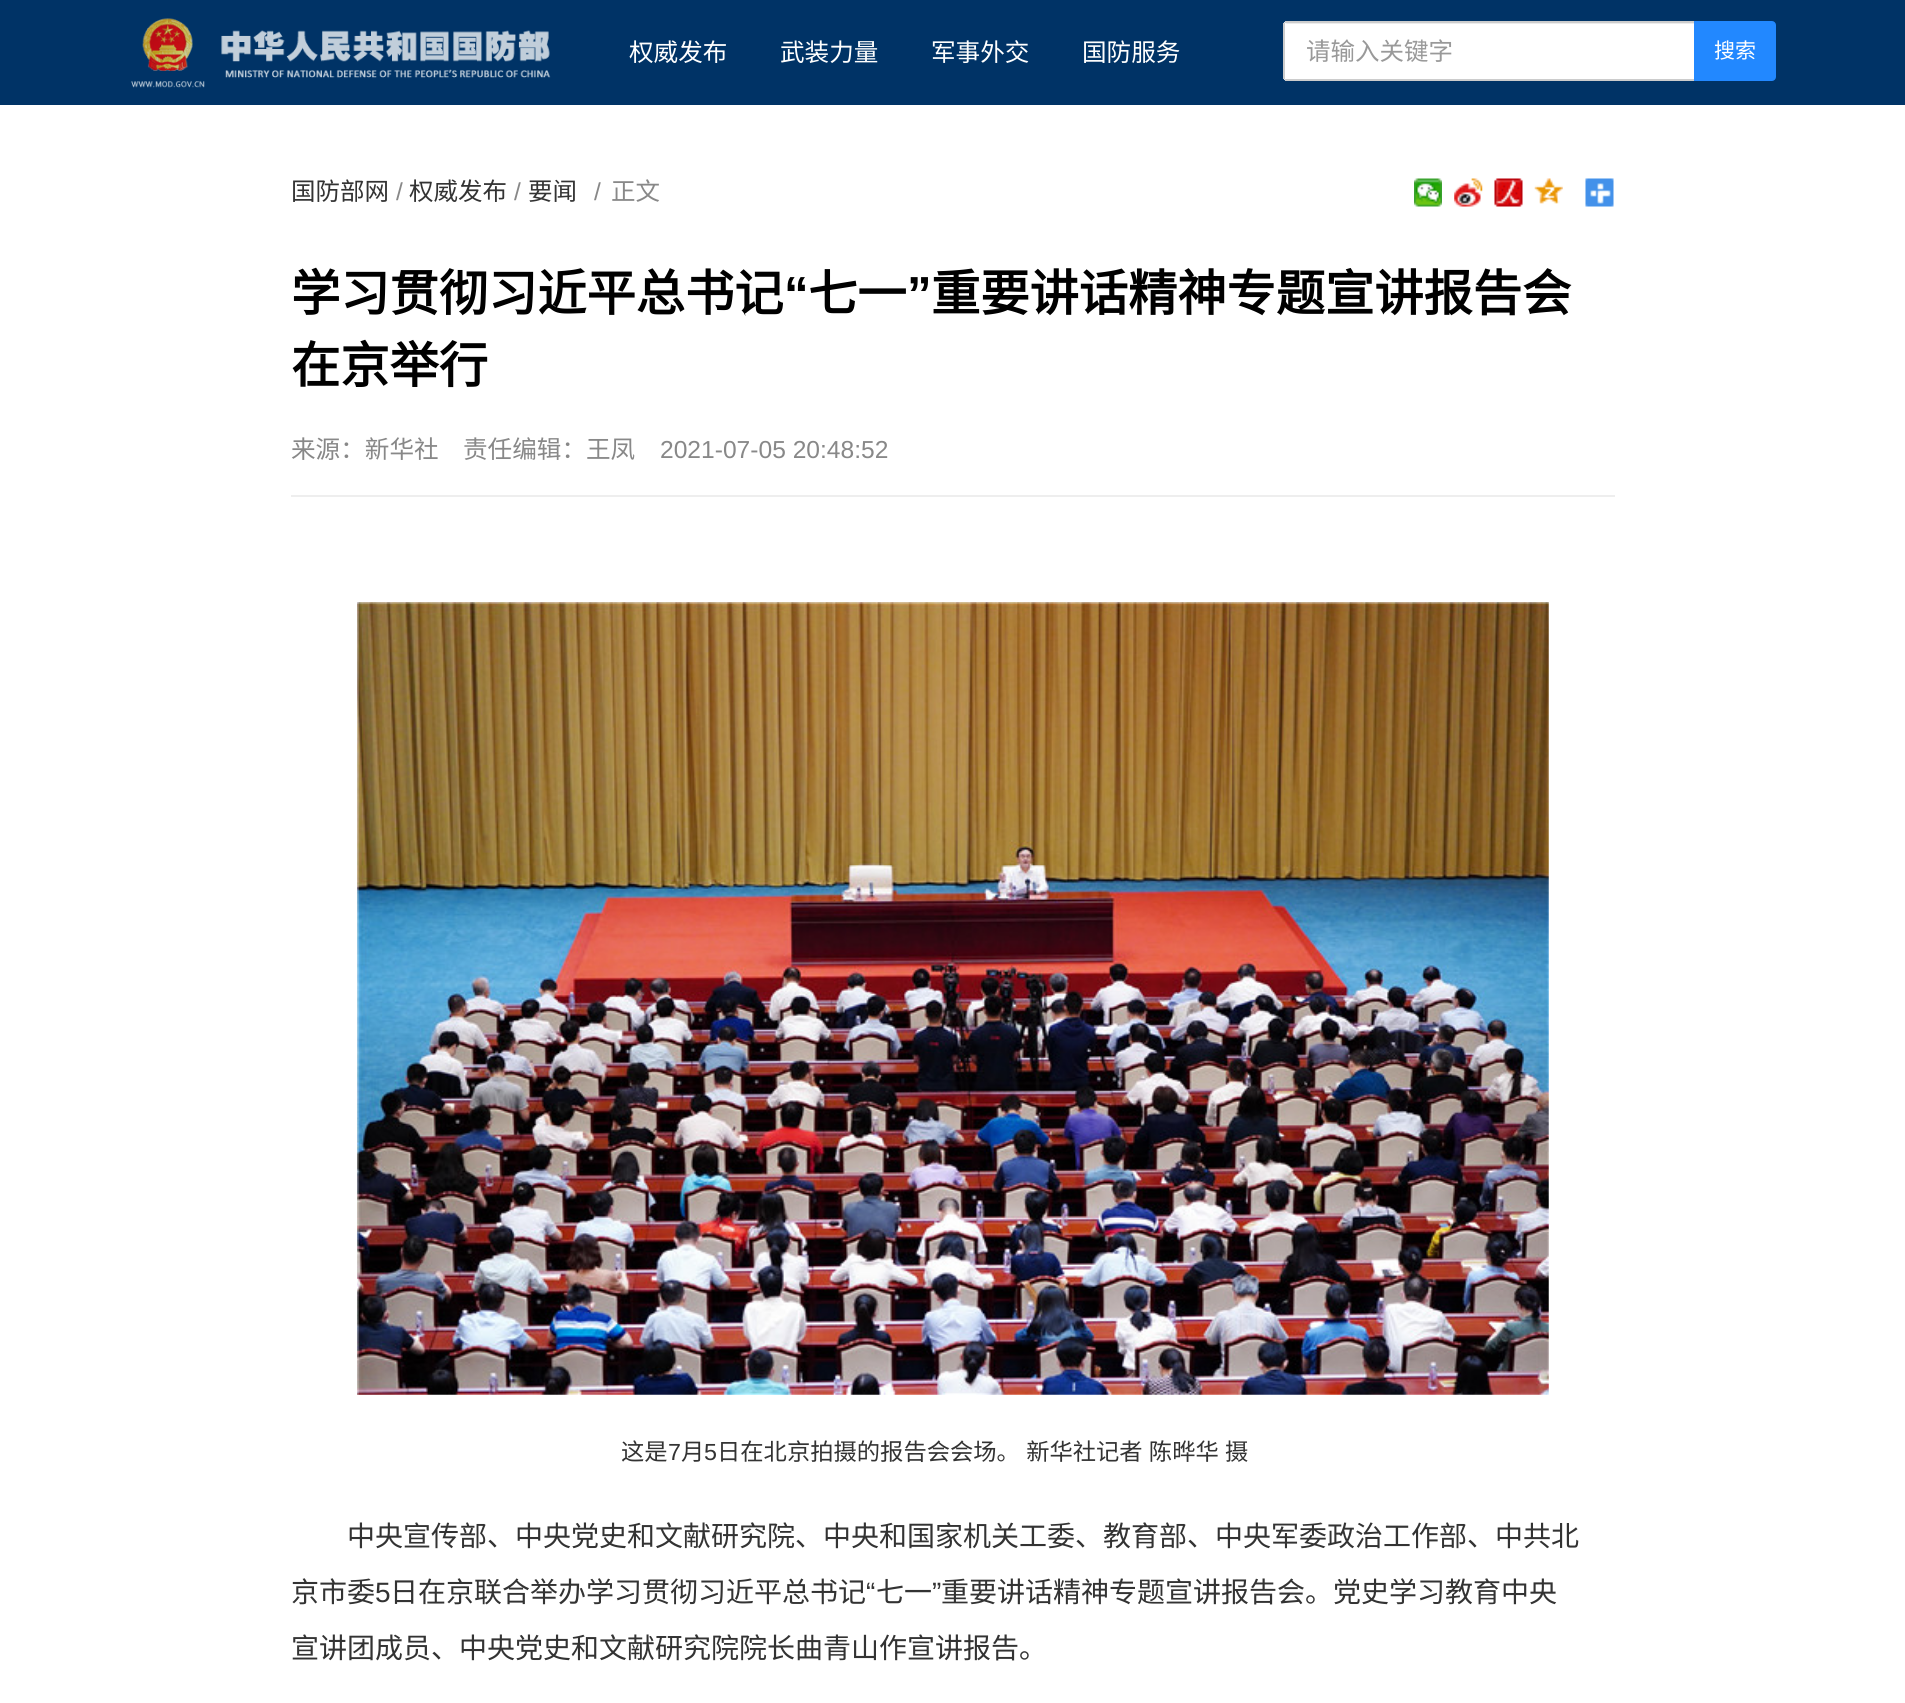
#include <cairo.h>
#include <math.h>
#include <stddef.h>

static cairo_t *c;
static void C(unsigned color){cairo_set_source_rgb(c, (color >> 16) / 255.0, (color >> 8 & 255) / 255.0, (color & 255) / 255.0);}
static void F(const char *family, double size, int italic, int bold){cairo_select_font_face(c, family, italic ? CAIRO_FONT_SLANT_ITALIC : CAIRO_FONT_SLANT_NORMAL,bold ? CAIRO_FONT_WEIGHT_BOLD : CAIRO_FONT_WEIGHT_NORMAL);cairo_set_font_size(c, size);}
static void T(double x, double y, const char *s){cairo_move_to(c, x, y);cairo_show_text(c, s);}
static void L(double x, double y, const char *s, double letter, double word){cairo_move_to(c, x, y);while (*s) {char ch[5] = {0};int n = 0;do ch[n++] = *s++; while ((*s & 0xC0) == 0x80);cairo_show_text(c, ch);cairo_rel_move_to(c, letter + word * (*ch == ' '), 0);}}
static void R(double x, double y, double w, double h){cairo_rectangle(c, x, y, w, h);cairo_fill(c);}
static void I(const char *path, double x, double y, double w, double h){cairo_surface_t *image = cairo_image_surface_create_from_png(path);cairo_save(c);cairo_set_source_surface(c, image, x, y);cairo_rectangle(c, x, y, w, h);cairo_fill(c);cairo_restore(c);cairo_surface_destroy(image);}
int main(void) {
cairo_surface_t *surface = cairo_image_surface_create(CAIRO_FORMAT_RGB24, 1905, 1703);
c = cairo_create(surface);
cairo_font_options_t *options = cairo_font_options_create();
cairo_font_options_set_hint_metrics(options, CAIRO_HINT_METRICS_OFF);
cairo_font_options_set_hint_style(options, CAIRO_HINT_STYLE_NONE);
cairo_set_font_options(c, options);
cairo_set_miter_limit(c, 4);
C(0xffffff);
cairo_paint(c);
C(0x003366);
R(0,0,1905,105);
I("1.png",131,18,420,70);
F("Noto Sans CJK SC",24.6,0,0);
C(0xffffff);
T(629,61,"权威发布");
T(780,61,"武装力量");
T(931,61,"军事外交");
T(1082,61,"国防服务");
cairo_new_path(c);
cairo_move_to(c,1287,21);
cairo_line_to(c,1694,21);
cairo_line_to(c,1694,81);
cairo_line_to(c,1287,81);
cairo_curve_to(c,1285,81,1283,79,1283,77);
cairo_line_to(c,1283,25);
cairo_curve_to(c,1283,23,1285,21,1287,21);
cairo_close_path(c);
cairo_fill(c);
C(0xececec);
cairo_new_path(c);
cairo_move_to(c,1286,24);
cairo_line_to(c,1694,24);
cairo_line_to(c,1694,23);
cairo_line_to(c,1287,23);
cairo_line_to(c,1285,24);
cairo_close_path(c);
cairo_fill(c);
C(0xcccccc);
R(1285,21,409,2);
R(1285,79,409,2);
R(1283,23,2,56);
F("Noto Sans CJK SC",24.5,0,0);
C(0x999999);
T(1306,60,"请输入关键字");
C(0x2288ff);
cairo_new_path(c);
cairo_move_to(c,1695,22);
cairo_line_to(c,1772,22);
cairo_curve_to(c,1773.5,22,1775,23.5,1775,25);
cairo_line_to(c,1775,77);
cairo_curve_to(c,1775,78.5,1773.5,80,1772,80);
cairo_line_to(c,1695,80);
cairo_close_path(c);
cairo_fill_preserve(c);
cairo_stroke(c);
F("Noto Sans CJK SC",21,0,0);
C(0xffffff);
T(1714,58,"搜索");
F("Noto Sans CJK SC",24.5,0,0);
C(0x333333);
T(291,200,"国防部网");
F("Liberation Sans",24.5,0,0);
C(0x888888);
T(396,200,"/");
F("Noto Sans CJK SC",24.5,0,0);
C(0x333333);
T(409,200,"权威发布");
F("Liberation Sans",24.5,0,0);
C(0x888888);
T(514,200,"/");
F("Noto Sans CJK SC",24.5,0,0);
C(0x333333);
T(528,200,"要闻");
F("Liberation Sans",24.5,0,0);
C(0x888888);
T(594,200,"/");
F("Noto Sans CJK SC",24.5,0,0);
T(611,200,"正文");
I("2.png",1414,178,28,29);
I("3.png",1454,178,29,29);
I("4.png",1494,178,29,29);
I("5.png",1534,178,29,26);
I("6.png",1585,178,29,29);
C(0xeeeeee);
R(291,495,1324,2);
F("Noto Sans CJK SC",49.25,0,1);
C(0x000000);
T(291,311,"学习贯彻习近平总书记");
F("Liberation Sans",49.25,0,1);
T(784,311,"“");
F("Noto Sans CJK SC",49.25,0,1);
T(808,311,"七一");
F("Liberation Sans",49.25,0,1);
T(907,311,"”");
F("Noto Sans CJK SC",49.25,0,1);
T(931,311,"重要讲话精神专题宣讲报告会");
T(291,383,"在京举行");
F("Noto Sans CJK SC",24.6,0,0);
C(0x888888);
T(291,458,"来源：新华社");
T(463,458,"责任编辑：王凤");
F("Liberation Sans",24.6,0,0);
T(660,458,"2021-07-05 20:48:52");
I("7.png",357,602,1192,793);
F("Noto Sans CJK SC",23.3,0,0);
C(0x333333);
T(621,1460,"这是");
F("Liberation Sans",23.3,0,0);
T(668,1460,"7");
F("Noto Sans CJK SC",23.3,0,0);
T(681,1460,"月");
F("Liberation Sans",23.3,0,0);
T(704,1460,"5");
F("Noto Sans CJK SC",23.3,0,0);
L(717,1460,"日在北京拍摄的报告会会场。 新华社记者 陈晔华 摄",0,1);
F("Noto Sans CJK SC",28,0,0);
T(347,1546,"中央宣传部、中央党史和文献研究院、中央和国家机关工委、教育部、中央军委政治工作部、中共北");
T(291,1602,"京市委");
F("Liberation Sans",28,0,0);
T(375,1602,"5");
F("Noto Sans CJK SC",28,0,0);
T(390,1602,"日在京联合举办学习贯彻习近平总书记");
F("Liberation Sans",28,0,0);
T(866,1602,"“");
F("Noto Sans CJK SC",28,0,0);
T(876,1602,"七一");
F("Liberation Sans",28,0,0);
T(932,1602,"”");
F("Noto Sans CJK SC",28,0,0);
T(941,1602,"重要讲话精神专题宣讲报告会。党史学习教育中央");
T(291,1658,"宣讲团成员、中央党史和文献研究院院长曲青山作宣讲报告。");
cairo_surface_write_to_png(surface, "o.png");
cairo_font_options_destroy(options);
cairo_destroy(c);
cairo_surface_destroy(surface);
return 0;
}
